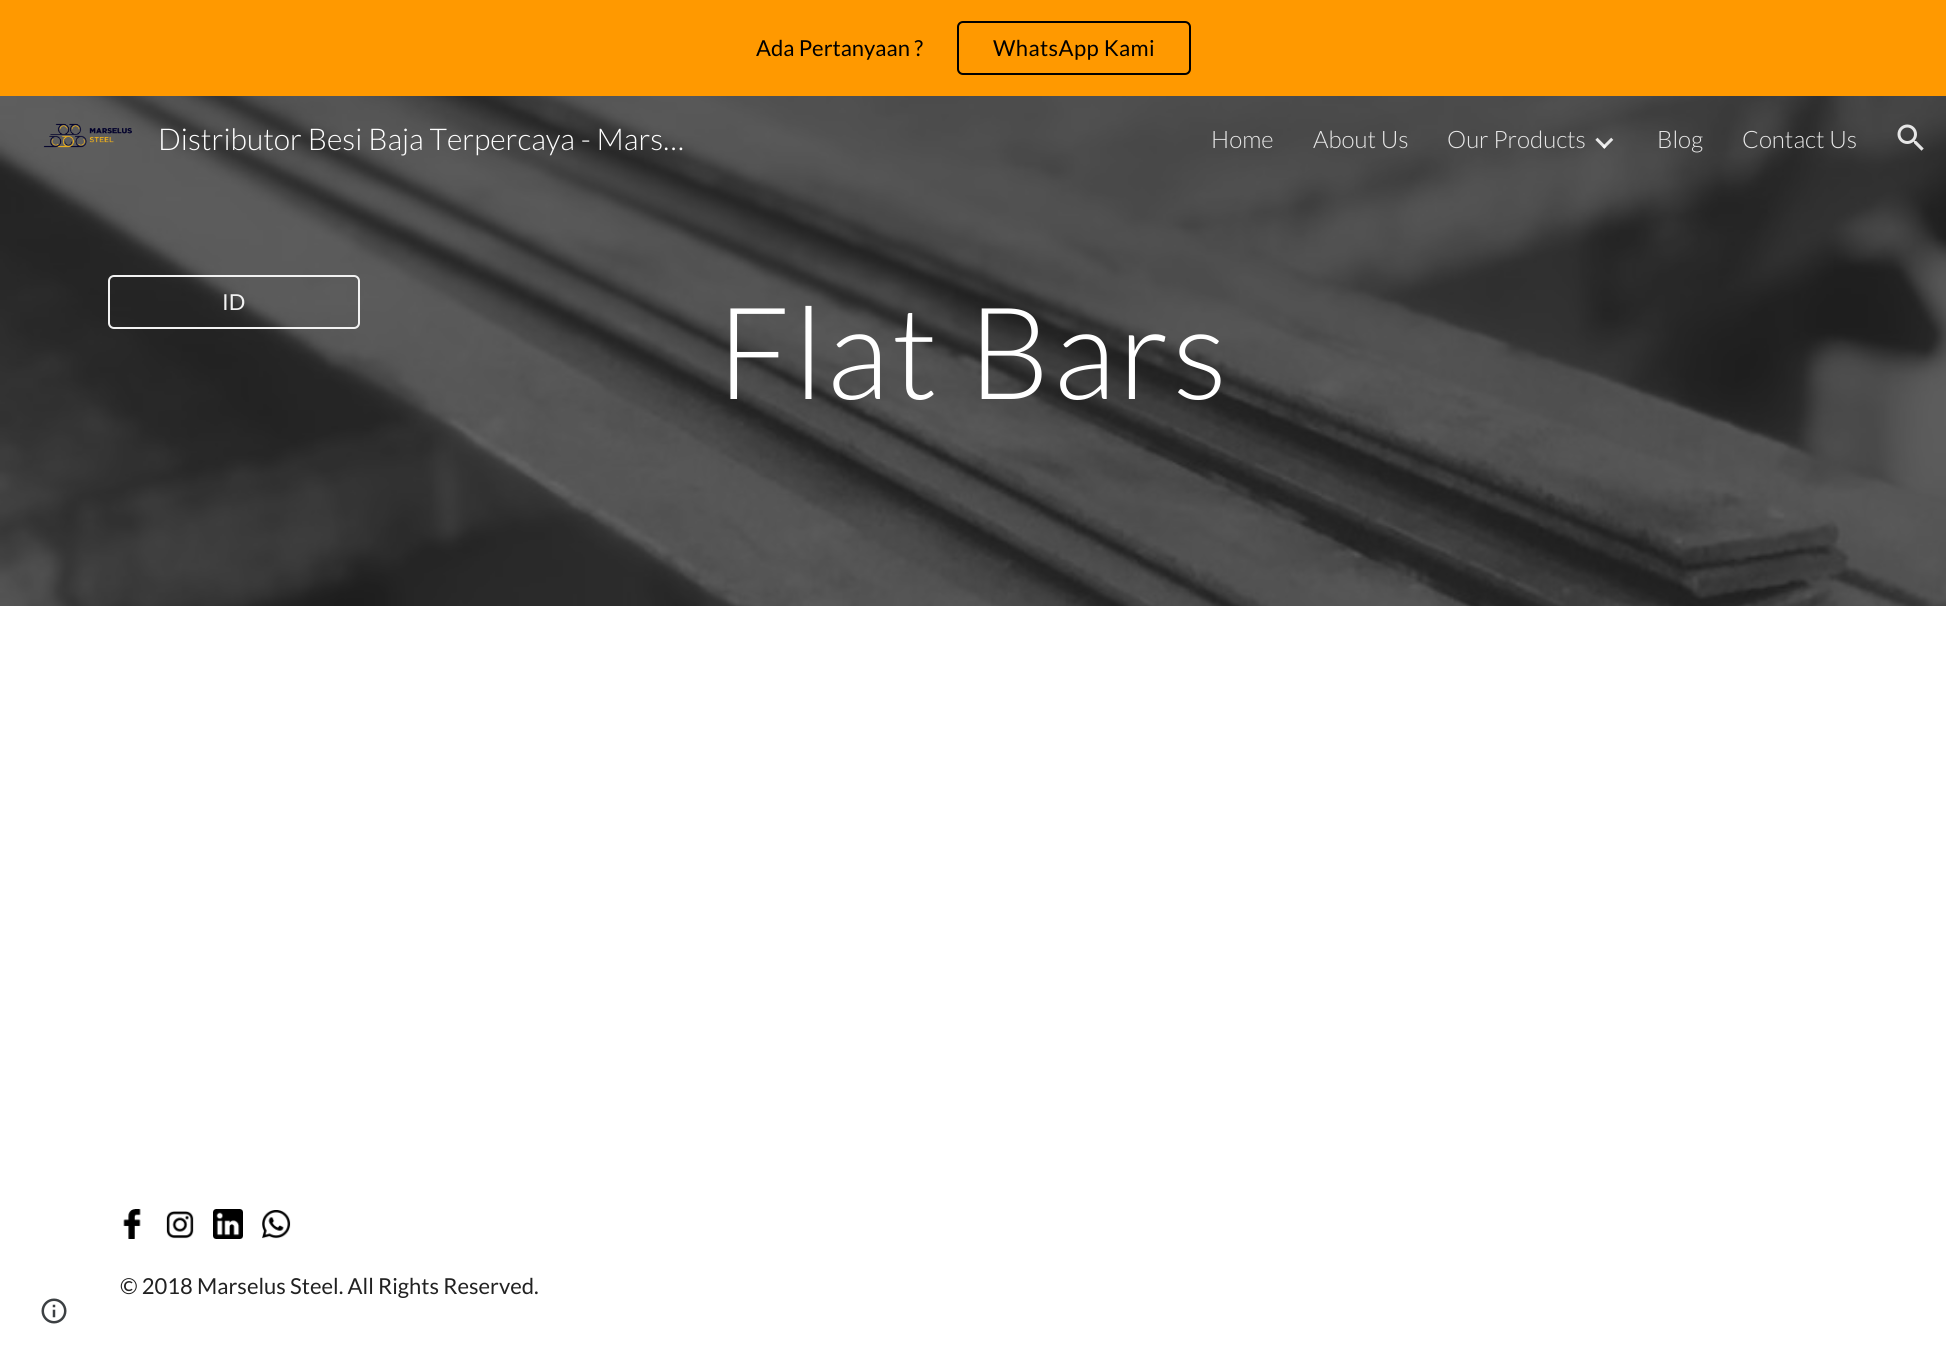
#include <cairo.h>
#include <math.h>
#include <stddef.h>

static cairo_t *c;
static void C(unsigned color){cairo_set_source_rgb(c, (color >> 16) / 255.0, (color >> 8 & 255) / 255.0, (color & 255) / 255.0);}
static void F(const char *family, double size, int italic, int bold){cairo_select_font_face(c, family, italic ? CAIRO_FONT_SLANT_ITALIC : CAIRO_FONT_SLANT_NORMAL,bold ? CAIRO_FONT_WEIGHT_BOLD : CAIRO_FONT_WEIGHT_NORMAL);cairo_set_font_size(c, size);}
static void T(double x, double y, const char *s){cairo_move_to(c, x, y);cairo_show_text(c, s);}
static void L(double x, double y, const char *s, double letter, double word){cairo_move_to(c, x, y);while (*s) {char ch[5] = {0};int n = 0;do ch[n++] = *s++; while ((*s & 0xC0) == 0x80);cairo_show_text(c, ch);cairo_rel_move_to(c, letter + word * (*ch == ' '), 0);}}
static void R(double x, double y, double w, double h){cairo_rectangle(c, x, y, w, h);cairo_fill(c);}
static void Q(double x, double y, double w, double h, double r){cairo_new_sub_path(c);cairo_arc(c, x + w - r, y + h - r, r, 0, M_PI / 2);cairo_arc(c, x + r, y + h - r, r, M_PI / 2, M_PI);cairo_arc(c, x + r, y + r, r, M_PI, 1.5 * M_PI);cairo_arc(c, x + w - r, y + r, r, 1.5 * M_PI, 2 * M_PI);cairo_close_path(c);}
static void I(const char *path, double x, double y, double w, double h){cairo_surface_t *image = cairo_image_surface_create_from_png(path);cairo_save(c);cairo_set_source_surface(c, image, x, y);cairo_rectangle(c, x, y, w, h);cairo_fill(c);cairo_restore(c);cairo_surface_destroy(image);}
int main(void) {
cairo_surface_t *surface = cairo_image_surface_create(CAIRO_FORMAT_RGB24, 1946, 1362);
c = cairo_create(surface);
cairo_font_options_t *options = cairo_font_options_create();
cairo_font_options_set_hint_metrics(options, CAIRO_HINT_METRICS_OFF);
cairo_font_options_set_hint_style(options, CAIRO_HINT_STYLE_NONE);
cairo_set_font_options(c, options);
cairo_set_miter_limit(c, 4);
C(0xffffff);
cairo_paint(c);
C(0xff9900);
R(0,0,1946,96);
F("Lato",22,0,0);
C(0x000000);
T(756,56,"Ada Pertanyaan ?");
Q(958,22,232,52,5);
cairo_stroke(c);
L(993,56,"WhatsApp Kami",.4,0);
I("4.png",0,96,1946,510);
I("1.png",43,123,89,25);
F("Lato Light",30,0,0);
C(0xffffff);
T(158,150,"Distributor Besi Baja Terpercaya - Mars…");
F("Lato Light",24,0,0);
C(0xe7e7e7);
T(1211,148,"Home");
T(1313,148,"About Us");
T(1447,148,"Our Products");
I("2.png",1595,137,19,12);
T(1657,148,"Blog");
T(1742,148,"Contact Us");
I("3.png",1897,124,27,27);
Q(109,276,250,52,5);
C(0xf2f2f2);
cairo_stroke(c);
F("Lato",22,0,0);
T(222,310,"ID");
F("Lato Light",128,0,0);
C(0xffffff);
L(717,399,"Flat Bars",3,0);
I("5.png",123,1209,18,30);
I("6.png",166,1211,28,28);
I("7.png",213,1209,30,30);
I("8.png",262,1210,29,29);
F("Lato",22,0,0);
C(0x212121);
T(120,1294,"© 2018 Marselus Steel. All Rights Reserved.");
I("9.png",41,1298,26,26);
cairo_surface_write_to_png(surface, "o.png");
cairo_font_options_destroy(options);
cairo_destroy(c);
cairo_surface_destroy(surface);
return 0;
}
